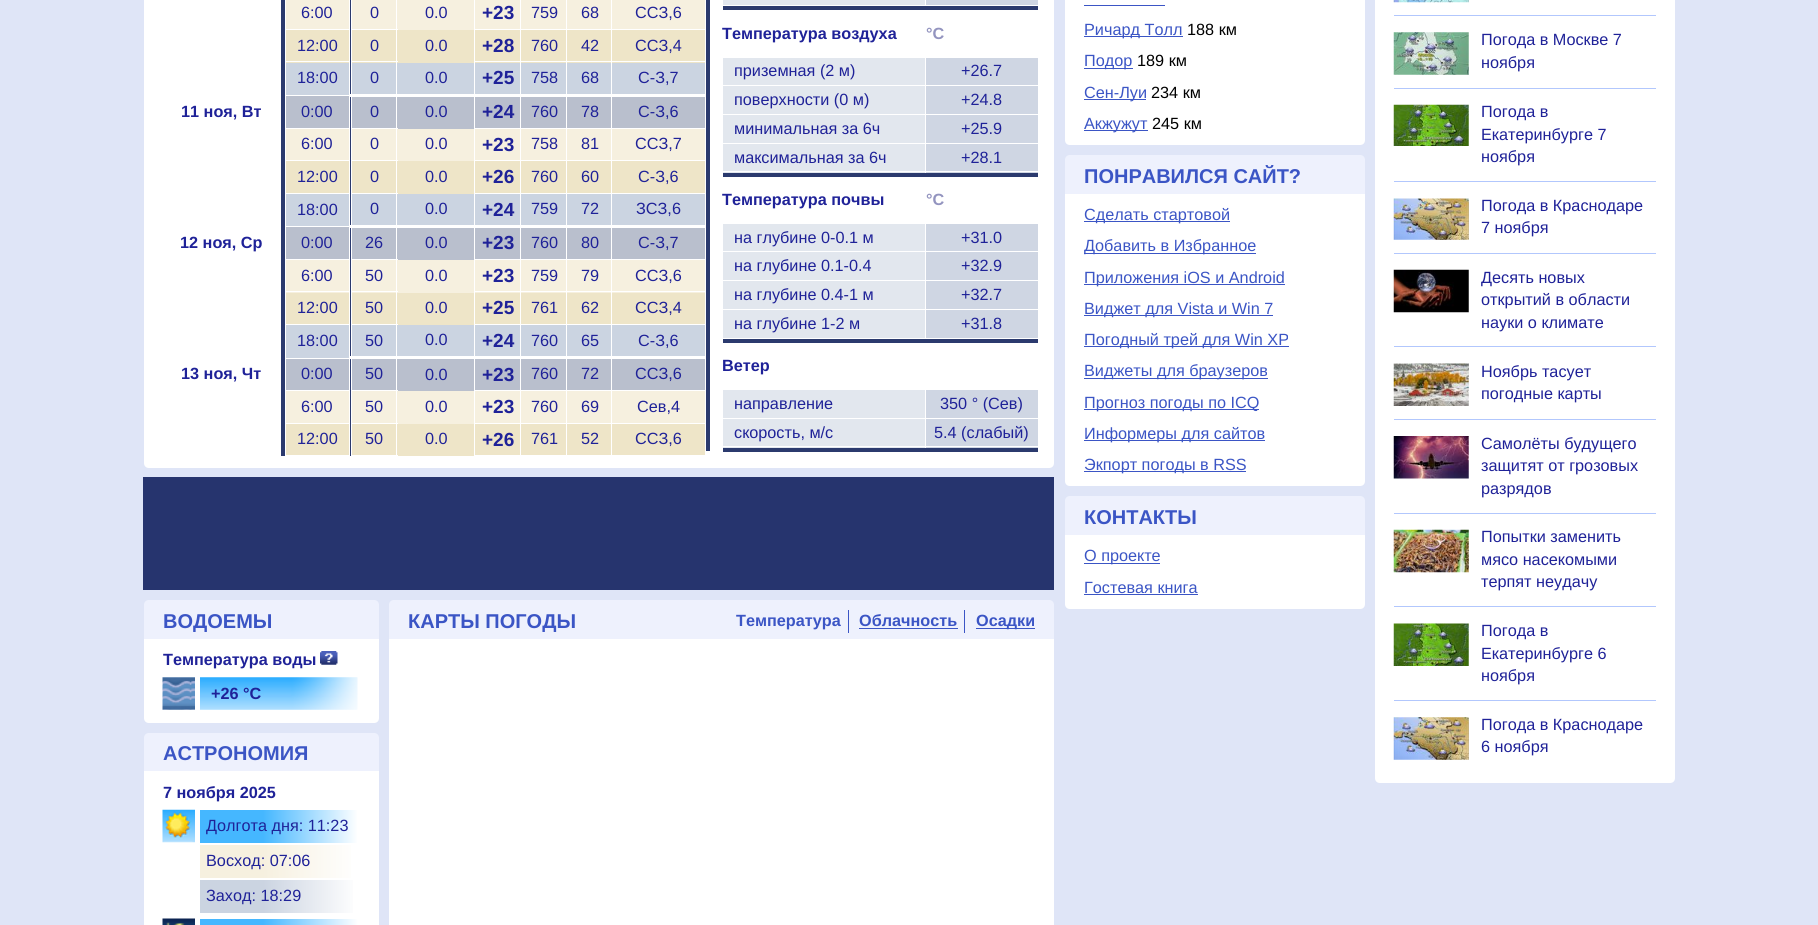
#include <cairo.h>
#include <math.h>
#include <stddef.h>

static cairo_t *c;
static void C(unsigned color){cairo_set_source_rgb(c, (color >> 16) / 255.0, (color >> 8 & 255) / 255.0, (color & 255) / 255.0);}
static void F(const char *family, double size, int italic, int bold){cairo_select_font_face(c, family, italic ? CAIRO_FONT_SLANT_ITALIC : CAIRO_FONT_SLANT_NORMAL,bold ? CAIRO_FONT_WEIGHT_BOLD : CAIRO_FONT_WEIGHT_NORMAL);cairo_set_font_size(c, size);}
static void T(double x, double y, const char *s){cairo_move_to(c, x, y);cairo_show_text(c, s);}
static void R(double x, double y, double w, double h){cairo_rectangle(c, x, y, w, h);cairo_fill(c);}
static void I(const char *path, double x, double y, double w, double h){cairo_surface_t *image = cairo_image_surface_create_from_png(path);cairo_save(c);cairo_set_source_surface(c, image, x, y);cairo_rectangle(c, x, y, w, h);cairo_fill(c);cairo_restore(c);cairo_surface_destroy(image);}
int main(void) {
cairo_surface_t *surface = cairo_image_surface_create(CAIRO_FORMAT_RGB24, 1818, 925);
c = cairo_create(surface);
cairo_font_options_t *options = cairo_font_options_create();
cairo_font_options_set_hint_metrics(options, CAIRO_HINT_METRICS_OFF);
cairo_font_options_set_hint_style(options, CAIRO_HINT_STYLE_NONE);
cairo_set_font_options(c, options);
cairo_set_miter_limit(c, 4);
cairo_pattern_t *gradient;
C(0xdfe5f7);
cairo_paint(c);
C(0xffffff);
R(144,0,910,458);
C(0xf6f0df);
R(286,0,419,30);
C(0x2b3a6e);
R(281,0,4,456);
C(0xeee5c8);
R(286,30,419,33);
C(0xcbd4e1);
R(286,63,419,32);
C(0xb9bfcd);
R(286,96,419,33);
C(0xf6f0df);
R(286,129,419,32);
C(0xeee5c8);
R(286,161,419,33);
C(0xcbd4e1);
R(286,194,419,32);
C(0xb9bfcd);
R(286,227,419,33);
C(0xf6f0df);
R(286,260,419,33);
C(0xeee5c8);
R(286,293,419,32);
C(0xcbd4e1);
R(286,325,419,33);
C(0xb9bfcd);
R(286,359,419,32);
C(0xf6f0df);
R(286,391,419,33);
C(0xeee5c8);
R(286,424,419,32);
C(0xffffff);
R(349,0,1,456);
R(285,29,65,1);
F("Liberation Sans",16.25,0,0);
C(0x1f2298);
T(301,18,"6:00");
C(0x2b3a6e);
R(350,0,1,30);
C(0xffffff);
R(396,0,1,456);
R(351,455,47,1);
R(351,423,1,33);
R(351,423,47,1);
R(351,390,1,34);
R(351,390,47,1);
R(351,324,1,67);
R(351,324,47,1);
R(351,291,1,34);
R(351,291,47,1);
R(351,259,1,34);
R(351,259,47,1);
R(351,193,1,67);
R(351,193,47,1);
R(351,160,1,34);
R(351,160,47,1);
R(351,128,1,33);
R(351,128,47,1);
R(351,61,1,68);
R(351,61,47,1);
R(351,29,1,34);
R(351,29,47,1);
R(351,0,1,30);
C(0x1f2298);
T(370,18,"0");
C(0xffffff);
R(611,455,95,1);
R(611,423,1,33);
R(611,423,95,1);
R(611,390,1,34);
R(611,390,95,1);
R(611,324,1,67);
R(611,324,95,1);
R(611,291,1,34);
R(611,291,95,1);
R(611,259,1,34);
R(611,259,95,1);
R(611,193,1,67);
R(611,193,95,1);
R(611,160,1,34);
R(611,160,95,1);
R(611,128,1,33);
R(611,128,95,1);
R(611,61,1,68);
R(611,61,95,1);
R(611,29,1,34);
R(611,29,95,1);
R(611,0,1,30);
R(566,455,47,1);
R(566,423,1,33);
R(566,423,47,1);
R(566,390,1,34);
R(566,390,47,1);
R(566,324,1,67);
R(566,324,47,1);
R(566,291,1,34);
R(566,291,47,1);
R(566,259,1,34);
R(566,259,47,1);
R(566,193,1,67);
R(566,193,47,1);
R(566,160,1,34);
R(566,160,47,1);
R(566,128,1,33);
R(566,128,47,1);
R(566,61,1,68);
R(566,61,47,1);
R(566,29,1,34);
R(566,29,47,1);
R(566,0,1,30);
R(520,455,48,1);
R(520,423,1,33);
R(520,423,48,1);
R(520,390,1,34);
R(520,390,48,1);
R(520,324,1,67);
R(520,324,48,1);
R(520,291,1,34);
R(520,291,48,1);
R(520,259,1,34);
R(520,259,48,1);
R(520,193,1,67);
R(520,193,48,1);
R(520,160,1,34);
R(520,160,48,1);
R(520,128,1,33);
R(520,128,48,1);
R(520,61,1,68);
R(520,61,48,1);
R(520,29,1,34);
R(520,29,48,1);
R(520,0,1,30);
R(474,455,47,1);
R(474,423,1,33);
R(474,423,47,1);
R(474,390,1,34);
R(474,390,47,1);
R(474,324,1,67);
R(474,324,47,1);
R(474,291,1,34);
R(474,291,47,1);
R(474,259,1,34);
R(474,259,47,1);
R(474,193,1,67);
R(474,193,47,1);
R(474,160,1,34);
R(474,160,47,1);
R(474,128,1,33);
R(474,128,47,1);
R(474,61,1,68);
R(474,61,47,1);
R(474,29,1,34);
R(474,29,47,1);
R(474,0,1,30);
C(0x1f2298);
T(425,18,"0.0");
F("Liberation Sans",19,0,1);
T(482,19,"+23");
F("Liberation Sans",16.25,0,0);
T(531,18,"759");
T(581,18,"68");
T(635,18,"ССЗ,6");
C(0xffffff);
R(285,61,65,1);
C(0x1f2298);
T(297,51,"12:00");
C(0x2b3a6e);
R(350,30,1,33);
C(0x1f2298);
T(370,51,"0");
T(425,51,"0.0");
F("Liberation Sans",19,0,1);
T(482,52,"+28");
F("Liberation Sans",16.25,0,0);
T(531,51,"760");
T(581,51,"42");
T(635,51,"ССЗ,4");
T(297,83,"18:00");
C(0x2b3a6e);
R(350,63,1,32);
C(0x1f2298);
T(370,83,"0");
T(425,83,"0.0");
F("Liberation Sans",19,0,1);
T(482,84,"+25");
F("Liberation Sans",16.25,0,0);
T(531,83,"758");
T(581,83,"68");
T(638,83,"С-З,7");
F("Liberation Sans",16.25,0,1);
T(181,117,"11 ноя, Вт");
C(0xffffff);
R(285,128,65,1);
F("Liberation Sans",16.25,0,0);
C(0x1f2298);
T(301,117,"0:00");
C(0x2b3a6e);
R(350,95,1,34);
C(0x1f2298);
T(370,117,"0");
T(425,117,"0.0");
F("Liberation Sans",19,0,1);
T(482,118,"+24");
F("Liberation Sans",16.25,0,0);
T(531,117,"760");
T(581,117,"78");
C(0xffffff);
R(350,94,356,3);
C(0x1f2298);
T(638,117,"С-З,6");
C(0xffffff);
R(285,160,65,1);
C(0x1f2298);
T(301,149,"6:00");
C(0x2b3a6e);
R(350,129,1,32);
C(0x1f2298);
T(370,149,"0");
T(425,149,"0.0");
F("Liberation Sans",19,0,1);
T(482,151,"+23");
F("Liberation Sans",16.25,0,0);
T(531,149,"758");
T(581,149,"81");
T(635,149,"ССЗ,7");
C(0xffffff);
R(285,193,65,1);
C(0x1f2298);
T(297,182,"12:00");
C(0x2b3a6e);
R(350,161,1,33);
C(0x1f2298);
T(370,182,"0");
T(425,182,"0.0");
F("Liberation Sans",19,0,1);
T(482,183,"+26");
F("Liberation Sans",16.25,0,0);
T(531,182,"760");
T(581,182,"60");
T(638,182,"С-З,6");
T(297,215,"18:00");
C(0x2b3a6e);
R(350,194,1,32);
C(0x1f2298);
T(370,214,"0");
T(425,214,"0.0");
F("Liberation Sans",19,0,1);
T(482,216,"+24");
F("Liberation Sans",16.25,0,0);
T(531,214,"759");
T(581,214,"72");
T(636,214,"ЗСЗ,6");
F("Liberation Sans",16.25,0,1);
T(180,248,"12 ноя, Ср");
C(0xffffff);
R(285,259,65,1);
F("Liberation Sans",16.25,0,0);
C(0x1f2298);
T(301,248,"0:00");
C(0x2b3a6e);
R(350,226,1,34);
C(0x1f2298);
T(365,248,"26");
T(425,248,"0.0");
F("Liberation Sans",19,0,1);
T(482,249,"+23");
F("Liberation Sans",16.25,0,0);
T(531,248,"760");
T(581,248,"80");
C(0xffffff);
R(350,225,356,3);
C(0x1f2298);
T(638,248,"С-З,7");
C(0xffffff);
R(285,291,65,1);
C(0x1f2298);
T(301,281,"6:00");
C(0x2b3a6e);
R(350,260,1,33);
C(0x1f2298);
T(365,281,"50");
T(425,281,"0.0");
F("Liberation Sans",19,0,1);
T(482,282,"+23");
F("Liberation Sans",16.25,0,0);
T(531,281,"759");
T(581,281,"79");
T(635,281,"ССЗ,6");
C(0xffffff);
R(285,324,65,1);
C(0x1f2298);
T(297,313,"12:00");
C(0x2b3a6e);
R(350,293,1,32);
C(0x1f2298);
T(365,313,"50");
T(425,313,"0.0");
F("Liberation Sans",19,0,1);
T(482,314,"+25");
F("Liberation Sans",16.25,0,0);
T(531,313,"761");
T(581,313,"62");
T(635,313,"ССЗ,4");
T(297,346,"18:00");
C(0x2b3a6e);
R(350,325,1,33);
C(0x1f2298);
T(365,346,"50");
T(425,345,"0.0");
F("Liberation Sans",19,0,1);
T(482,347,"+24");
F("Liberation Sans",16.25,0,0);
T(531,346,"760");
T(581,346,"65");
T(638,346,"С-З,6");
F("Liberation Sans",16.25,0,1);
T(181,379,"13 ноя, Чт");
C(0xffffff);
R(285,390,65,1);
F("Liberation Sans",16.25,0,0);
C(0x1f2298);
T(301,379,"0:00");
C(0x2b3a6e);
R(350,358,1,33);
C(0xffffff);
R(396,356,310,2);
R(350,356,49,3);
C(0x1f2298);
T(365,379,"50");
T(425,380,"0.0");
F("Liberation Sans",19,0,1);
T(482,381,"+23");
F("Liberation Sans",16.25,0,0);
T(531,379,"760");
T(581,379,"72");
T(635,379,"ССЗ,6");
C(0xffffff);
R(285,423,65,1);
C(0x1f2298);
T(301,412,"6:00");
C(0x2b3a6e);
R(350,391,1,33);
C(0x1f2298);
T(365,412,"50");
T(425,412,"0.0");
F("Liberation Sans",19,0,1);
T(482,413,"+23");
F("Liberation Sans",16.25,0,0);
T(531,412,"760");
T(581,412,"69");
T(637,412,"Сев,4");
C(0xffffff);
R(285,455,65,1);
C(0x1f2298);
T(297,444,"12:00");
C(0x2b3a6e);
R(350,424,1,32);
C(0x1f2298);
T(365,444,"50");
T(425,444,"0.0");
F("Liberation Sans",19,0,1);
T(482,446,"+26");
F("Liberation Sans",16.25,0,0);
T(531,444,"761");
T(581,444,"52");
T(635,444,"ССЗ,6");
C(0x2b3a6e);
R(706,0,4,451);
C(0xe2e7ee);
R(723,0,203,5);
C(0xffffff);
R(925,0,1,6);
C(0xcfd6e3);
R(926,0,112,5);
C(0x2b3a6e);
R(723,6,315,4);
F("Liberation Sans",16.25,0,1);
C(0x1f2298);
T(722,39,"Температура воздуха");
C(0x9394bf);
T(926,39,"°С");
C(0xe2e7ee);
R(723,58,202,27);
F("Liberation Sans",16.25,0,0);
C(0x1f2298);
T(734,76,"приземная (2 м)");
C(0xcfd6e3);
R(926,58,112,27);
C(0x1f2298);
T(961,76,"+26.7");
C(0xe2e7ee);
R(723,86,202,28);
C(0x1f2298);
T(734,105,"поверхности (0 м)");
C(0xcfd6e3);
R(926,86,112,28);
C(0x1f2298);
T(961,105,"+24.8");
C(0xe2e7ee);
R(723,115,202,28);
C(0x1f2298);
T(734,134,"минимальная за 6ч");
C(0xcfd6e3);
R(926,115,112,28);
C(0x1f2298);
T(961,134,"+25.9");
C(0xe2e7ee);
R(723,144,202,29);
C(0x1f2298);
T(734,163,"максимальная за 6ч");
C(0xcfd6e3);
R(926,144,112,29);
C(0xffffff);
R(721,171,317,1);
C(0x1f2298);
T(961,163,"+28.1");
C(0x2b3a6e);
R(723,173,315,4);
F("Liberation Sans",16.25,0,1);
C(0x1f2298);
T(722,205,"Температура почвы");
C(0x9394bf);
T(926,205,"°С");
C(0xe2e7ee);
R(723,224,202,56);
F("Liberation Sans",16.25,0,0);
C(0x1f2298);
T(734,243,"на глубине 0-0.1 м");
C(0xcfd6e3);
R(926,224,112,56);
C(0xffffff);
R(721,251,317,1);
C(0x1f2298);
T(961,243,"+31.0");
T(734,271,"на глубине 0.1-0.4");
T(961,271,"+32.9");
C(0xe2e7ee);
R(723,281,202,28);
C(0x1f2298);
T(734,300,"на глубине 0.4-1 м");
C(0xcfd6e3);
R(926,281,112,28);
C(0x1f2298);
T(961,300,"+32.7");
C(0xe2e7ee);
R(723,310,202,28);
C(0x1f2298);
T(734,329,"на глубине 1-2 м");
C(0xcfd6e3);
R(926,310,112,28);
C(0x1f2298);
T(961,329,"+31.8");
C(0x2b3a6e);
R(723,339,315,4);
F("Liberation Sans",16.25,0,1);
C(0x1f2298);
T(722,371,"Ветер");
C(0xe2e7ee);
R(723,390,202,28);
F("Liberation Sans",16.25,0,0);
C(0x1f2298);
T(734,409,"направление");
C(0xcfd6e3);
R(926,390,112,28);
C(0x1f2298);
T(940,409,"350 ° (Сев)");
C(0xe2e7ee);
R(723,419,202,29);
C(0x1f2298);
T(734,438,"скорость, м/с");
C(0xcfd6e3);
R(926,419,112,29);
C(0xffffff);
R(721,446,317,1);
C(0x1f2298);
T(934,438,"5.4 (слабый)");
C(0x2b3a6e);
R(723,448,315,4);
C(0xffffff);
cairo_new_path(c);
cairo_move_to(c,144,458);
cairo_line_to(c,1054,458);
cairo_line_to(c,1054,463);
cairo_curve_to(c,1054,466,1052,468,1049,468);
cairo_line_to(c,149,468);
cairo_curve_to(c,146,468,144,466,144,463);
cairo_close_path(c);
cairo_fill(c);
C(0x26346e);
R(143,477,911,113);
C(0xeef1fd);
cairo_new_path(c);
cairo_move_to(c,149,600);
cairo_line_to(c,374,600);
cairo_curve_to(c,377,600,379,602,379,605);
cairo_line_to(c,379,639);
cairo_line_to(c,144,639);
cairo_line_to(c,144,605);
cairo_curve_to(c,144,602,146,600,149,600);
cairo_close_path(c);
cairo_fill(c);
F("Liberation Sans",20,0,1);
C(0x3b55c5);
T(163,628,"ВОДОЕМЫ");
C(0xffffff);
R(144,639,235,74);
F("Liberation Sans",16.25,0,1);
C(0x1f2298);
T(163,665,"Температура воды");
I("1.png",320,651,18,14);
I("2.png",162,677,33,33);
I("3.png",200,677,158,33);
T(211,699,"+26 °C");
C(0xffffff);
cairo_new_path(c);
cairo_move_to(c,144,713);
cairo_line_to(c,379,713);
cairo_line_to(c,379,718);
cairo_curve_to(c,379,721,377,723,374,723);
cairo_line_to(c,149,723);
cairo_curve_to(c,146,723,144,721,144,718);
cairo_close_path(c);
cairo_fill(c);
C(0xeef1fd);
cairo_new_path(c);
cairo_move_to(c,149,733);
cairo_line_to(c,374,733);
cairo_curve_to(c,377,733,379,735,379,738);
cairo_line_to(c,379,771);
cairo_line_to(c,144,771);
cairo_line_to(c,144,738);
cairo_curve_to(c,144,735,146,733,149,733);
cairo_close_path(c);
cairo_fill(c);
F("Liberation Sans",20,0,1);
C(0x3b55c5);
T(163,760,"АСТРОНОМИЯ");
C(0xffffff);
R(144,771,235,154);
F("Liberation Sans",16.25,0,1);
C(0x1f2298);
T(163,798,"7 ноября 2025");
I("4.png",162,809,33,34);
gradient = cairo_pattern_create_linear(200,826,358,826);
cairo_pattern_add_color_stop_rgba(gradient,0,0.271,0.718,1,1);
cairo_pattern_add_color_stop_rgba(gradient,.4,0.271,0.718,1,1);
cairo_pattern_add_color_stop_rgba(gradient,1,1,1,1,1);
cairo_set_source(c,gradient);
cairo_pattern_destroy(gradient);
R(200,810,157,33);
F("Liberation Sans",16.25,0,0);
C(0x1f2298);
T(206,831,"Долгота дня: 11:23");
gradient = cairo_pattern_create_linear(200,861,358,861);
cairo_pattern_add_color_stop_rgba(gradient,0,0.965,0.941,0.875,1);
cairo_pattern_add_color_stop_rgba(gradient,.4,0.965,0.941,0.875,1);
cairo_pattern_add_color_stop_rgba(gradient,1,1,1,1,1);
cairo_set_source(c,gradient);
cairo_pattern_destroy(gradient);
R(200,845,151,33);
C(0x1f2298);
T(206,866,"Восход: 07:06");
gradient = cairo_pattern_create_linear(200,896,358,896);
cairo_pattern_add_color_stop_rgba(gradient,0,0.796,0.831,0.882,1);
cairo_pattern_add_color_stop_rgba(gradient,.4,0.796,0.831,0.882,1);
cairo_pattern_add_color_stop_rgba(gradient,1,1,1,1,1);
cairo_set_source(c,gradient);
cairo_pattern_destroy(gradient);
R(200,880,153,33);
C(0x1f2298);
T(206,901,"Заход: 18:29");
I("5.png",162,918,33,7);
gradient = cairo_pattern_create_linear(200,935,358,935);
cairo_pattern_add_color_stop_rgba(gradient,0,0.271,0.718,1,1);
cairo_pattern_add_color_stop_rgba(gradient,.4,0.271,0.718,1,1);
cairo_pattern_add_color_stop_rgba(gradient,1,1,1,1,1);
cairo_set_source(c,gradient);
cairo_pattern_destroy(gradient);
R(200,919,158,6);
C(0xeef1fd);
cairo_new_path(c);
cairo_move_to(c,394,600);
cairo_line_to(c,1049,600);
cairo_curve_to(c,1052,600,1054,602,1054,605);
cairo_line_to(c,1054,639);
cairo_line_to(c,389,639);
cairo_line_to(c,389,605);
cairo_curve_to(c,389,602,391,600,394,600);
cairo_close_path(c);
cairo_fill(c);
F("Liberation Sans",20,0,1);
C(0x3b55c5);
T(408,628,"КАРТЫ ПОГОДЫ");
R(848,610,1,23);
F("Liberation Sans",16.25,0,1);
T(736,626,"Температура");
R(964,610,1,23);
T(859,626,"Облачность");
R(859,628,99,1);
R(976,628,59,1);
T(976,626,"Осадки");
C(0xffffff);
R(389,639,665,286);
R(1065,0,300,135);
C(0x3b55c5);
R(1084,5,81,1);
R(1084,36,99,1);
F("Liberation Sans",16.25,0,0);
T(1084,35,"Ричард Толл");
C(0x000000);
T(1187,35,"188 км");
C(0x3b55c5);
R(1084,68,49,1);
T(1084,66,"Подор");
C(0x000000);
T(1137,66,"189 км");
C(0x3b55c5);
R(1084,99,62,1);
T(1084,98,"Сен-Луи");
C(0x000000);
T(1151,98,"234 км");
C(0x3b55c5);
R(1084,130,64,1);
T(1084,129,"Акжужут");
C(0x000000);
T(1152,129,"245 км");
C(0xffffff);
cairo_new_path(c);
cairo_move_to(c,1065,135);
cairo_line_to(c,1365,135);
cairo_line_to(c,1365,140);
cairo_curve_to(c,1365,143,1363,145,1360,145);
cairo_line_to(c,1070,145);
cairo_curve_to(c,1067,145,1065,143,1065,140);
cairo_close_path(c);
cairo_fill(c);
C(0xeef1fd);
cairo_new_path(c);
cairo_move_to(c,1070,155);
cairo_line_to(c,1360,155);
cairo_curve_to(c,1363,155,1365,157,1365,160);
cairo_line_to(c,1365,194);
cairo_line_to(c,1065,194);
cairo_line_to(c,1065,160);
cairo_curve_to(c,1065,157,1067,155,1070,155);
cairo_close_path(c);
cairo_fill(c);
cairo_save(c);
cairo_rectangle(c,1084,165,217,23);
cairo_clip(c);
F("Liberation Sans",20,0,1);
C(0x3b55c5);
T(1084,183,"ПОНРАВИЛСЯ САЙТ?");
cairo_restore(c);
C(0xffffff);
R(1065,194,300,282);
C(0x3b55c5);
R(1084,221,146,1);
T(1084,220,"Сделать стартовой");
R(1084,253,172,1);
T(1084,251,"Добавить в Избранное");
R(1084,284,201,1);
T(1084,283,"Приложения iOS и Android");
R(1084,315,189,1);
T(1084,314,"Виджет для Vista и Win 7");
R(1084,346,205,1);
T(1084,345,"Погодный трей для Win XP");
R(1084,378,184,1);
T(1084,376,"Виджеты для браузеров");
R(1084,409,175,1);
T(1084,408,"Прогноз погоды по ICQ");
R(1084,440,181,1);
T(1084,439,"Информеры для сайтов");
R(1084,471,162,1);
T(1084,470,"Экпорт погоды в RSS");
C(0xffffff);
cairo_new_path(c);
cairo_move_to(c,1065,476);
cairo_line_to(c,1365,476);
cairo_line_to(c,1365,481);
cairo_curve_to(c,1365,484,1363,486,1360,486);
cairo_line_to(c,1070,486);
cairo_curve_to(c,1067,486,1065,484,1065,481);
cairo_close_path(c);
cairo_fill(c);
C(0xeef1fd);
cairo_new_path(c);
cairo_move_to(c,1070,496);
cairo_line_to(c,1360,496);
cairo_curve_to(c,1363,496,1365,498,1365,501);
cairo_line_to(c,1365,535);
cairo_line_to(c,1065,535);
cairo_line_to(c,1065,501);
cairo_curve_to(c,1065,498,1067,496,1070,496);
cairo_close_path(c);
cairo_fill(c);
F("Liberation Sans",20,0,1);
C(0x3b55c5);
T(1084,524,"КОНТАКТЫ");
C(0xffffff);
R(1065,535,300,64);
C(0x3b55c5);
R(1084,563,76,1);
F("Liberation Sans",16.25,0,0);
T(1084,561,"О проекте");
T(1084,593,"Гостевая книга");
R(1084,594,114,1);
C(0xffffff);
cairo_new_path(c);
cairo_move_to(c,1065,599);
cairo_line_to(c,1365,599);
cairo_line_to(c,1365,604);
cairo_curve_to(c,1365,607,1363,609,1360,609);
cairo_line_to(c,1070,609);
cairo_curve_to(c,1067,609,1065,607,1065,604);
cairo_close_path(c);
cairo_fill(c);
R(1375,0,300,773);
I("6.png",1393,0,76,3);
C(0xb2c7fd);
R(1394,15,262,1);
I("7.png",1393,32,76,43);
C(0x1f2298);
T(1481,45,"Погода в Москве 7");
T(1481,68,"ноября");
C(0xb2c7fd);
R(1394,88,262,1);
I("8.png",1393,104,76,42);
C(0x1f2298);
T(1481,117,"Погода в");
T(1481,140,"Екатеринбурге 7");
T(1481,162,"ноября");
C(0xb2c7fd);
R(1394,181,262,1);
I("9.png",1393,198,76,42);
C(0x1f2298);
T(1481,211,"Погода в Краснодаре");
T(1481,233,"7 ноября");
C(0xb2c7fd);
R(1394,253,262,1);
I("10.png",1393,269,76,44);
C(0x1f2298);
T(1481,283,"Десять новых");
T(1481,305,"открытий в области");
T(1481,328,"науки о климате");
C(0xb2c7fd);
R(1394,346,262,1);
I("11.png",1393,363,76,43);
C(0x1f2298);
T(1481,377,"Ноябрь тасует");
T(1481,399,"погодные карты");
C(0xb2c7fd);
R(1394,419,262,1);
I("12.png",1393,436,76,43);
C(0x1f2298);
T(1481,449,"Самолёты будущего");
T(1481,471,"защитят от грозовых");
T(1481,494,"разрядов");
C(0xb2c7fd);
R(1394,513,262,1);
I("13.png",1393,529,76,44);
C(0x1f2298);
T(1481,542,"Попытки заменить");
T(1481,565,"мясо насекомыми");
T(1481,587,"терпят неудачу");
C(0xb2c7fd);
R(1394,606,262,1);
I("14.png",1393,623,76,43);
C(0x1f2298);
T(1481,636,"Погода в");
T(1481,659,"Екатеринбурге 6");
T(1481,681,"ноября");
C(0xb2c7fd);
R(1394,700,262,1);
I("15.png",1393,717,76,43);
C(0x1f2298);
T(1481,730,"Погода в Краснодаре");
T(1481,752,"6 ноября");
C(0xffffff);
cairo_new_path(c);
cairo_move_to(c,1375,773);
cairo_line_to(c,1675,773);
cairo_line_to(c,1675,778);
cairo_curve_to(c,1675,781,1673,783,1670,783);
cairo_line_to(c,1380,783);
cairo_curve_to(c,1377,783,1375,781,1375,778);
cairo_close_path(c);
cairo_fill(c);
cairo_surface_write_to_png(surface, "o.png");
cairo_font_options_destroy(options);
cairo_destroy(c);
cairo_surface_destroy(surface);
return 0;
}
